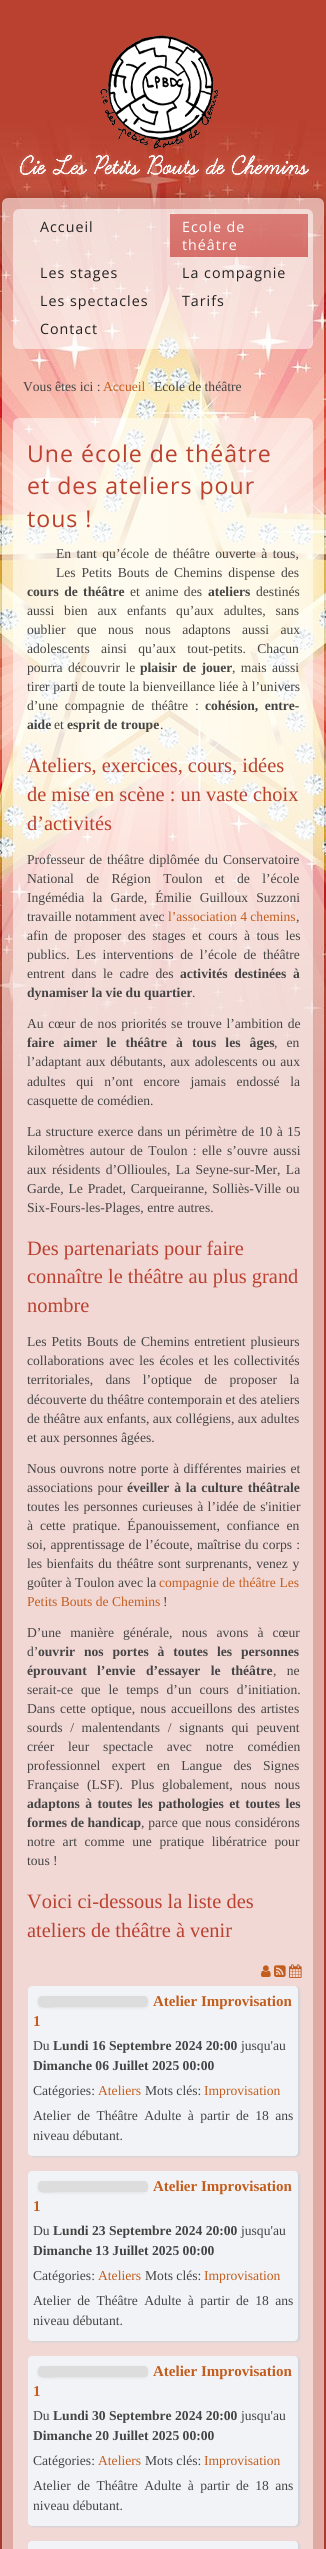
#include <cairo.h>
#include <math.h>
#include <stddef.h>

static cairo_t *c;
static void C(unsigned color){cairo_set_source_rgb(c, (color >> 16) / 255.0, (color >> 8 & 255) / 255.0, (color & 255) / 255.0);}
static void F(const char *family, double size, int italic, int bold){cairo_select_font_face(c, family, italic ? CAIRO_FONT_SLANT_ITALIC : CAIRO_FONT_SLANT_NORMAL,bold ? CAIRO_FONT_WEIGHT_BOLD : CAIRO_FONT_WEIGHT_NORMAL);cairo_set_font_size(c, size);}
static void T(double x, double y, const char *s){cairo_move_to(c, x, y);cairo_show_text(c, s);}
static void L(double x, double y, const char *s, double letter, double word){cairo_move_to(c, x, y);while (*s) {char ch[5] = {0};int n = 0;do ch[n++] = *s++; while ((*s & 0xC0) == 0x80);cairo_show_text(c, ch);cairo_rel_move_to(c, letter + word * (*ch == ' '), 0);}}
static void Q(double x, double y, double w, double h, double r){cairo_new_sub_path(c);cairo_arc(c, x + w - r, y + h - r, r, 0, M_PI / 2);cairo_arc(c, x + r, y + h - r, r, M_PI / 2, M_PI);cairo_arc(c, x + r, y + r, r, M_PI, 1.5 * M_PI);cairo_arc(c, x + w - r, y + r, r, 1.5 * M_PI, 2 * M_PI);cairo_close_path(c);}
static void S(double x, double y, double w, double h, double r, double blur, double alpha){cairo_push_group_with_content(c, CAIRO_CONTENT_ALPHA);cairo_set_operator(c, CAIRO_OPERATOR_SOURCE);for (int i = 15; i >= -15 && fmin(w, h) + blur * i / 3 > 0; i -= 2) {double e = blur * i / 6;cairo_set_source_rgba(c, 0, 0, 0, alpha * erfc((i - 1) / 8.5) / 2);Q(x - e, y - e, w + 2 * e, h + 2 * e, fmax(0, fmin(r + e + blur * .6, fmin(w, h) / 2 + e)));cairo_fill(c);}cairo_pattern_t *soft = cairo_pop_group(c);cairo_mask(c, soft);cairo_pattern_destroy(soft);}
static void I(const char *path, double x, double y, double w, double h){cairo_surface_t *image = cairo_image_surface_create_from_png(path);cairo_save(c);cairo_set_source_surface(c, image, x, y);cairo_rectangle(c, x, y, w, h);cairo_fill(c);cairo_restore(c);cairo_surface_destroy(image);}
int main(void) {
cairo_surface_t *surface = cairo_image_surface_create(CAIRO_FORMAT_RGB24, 326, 2549);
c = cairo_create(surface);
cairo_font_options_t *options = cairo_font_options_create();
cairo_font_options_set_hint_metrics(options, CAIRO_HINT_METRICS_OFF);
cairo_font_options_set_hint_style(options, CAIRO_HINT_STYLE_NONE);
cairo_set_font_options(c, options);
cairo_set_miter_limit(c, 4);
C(0xba4130);
cairo_paint(c);
I("1.png",0,120,326,959);
I("2.png",18,35,292,142);
cairo_save(c);
cairo_set_fill_rule(c,CAIRO_FILL_RULE_EVEN_ODD);
cairo_new_path(c);
cairo_move_to(c,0,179);
cairo_line_to(c,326,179);
cairo_line_to(c,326,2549);
cairo_line_to(c,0,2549);
cairo_close_path(c);
cairo_move_to(c,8,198);
cairo_line_to(c,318,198);
cairo_curve_to(c,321.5,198,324,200.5,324,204);
cairo_line_to(c,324,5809);
cairo_curve_to(c,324,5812.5,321.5,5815,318,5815);
cairo_line_to(c,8,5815);
cairo_curve_to(c,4.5,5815,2,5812.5,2,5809);
cairo_line_to(c,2,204);
cairo_curve_to(c,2,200.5,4.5,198,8,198);
cairo_close_path(c);
cairo_clip(c);
C(0x000000);
S(2,198,322,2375,6,6,.25);
cairo_restore(c);
I("3.png",2,198,322,2351);
Q(2.5,198.5,321,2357,5.5);
cairo_set_source_rgba(c,1,1,1,0.08);
cairo_set_line_width(c,1);
cairo_stroke(c);
I("4.png",13,209,300,140);
F("Open Sans",14.25,0,0);
C(0x222222);
L(40,232,"Accueil",1,0);
I("5.png",170,214,138,43);
C(0xffffff);
L(182,232,"Ecole de",1,0);
L(182,250,"théâtre",1,0);
C(0x222222);
L(40,278,"Les stages",1,0);
L(182,278,"La compagnie",1,0);
L(40,306,"Les spectacles",1,0);
L(182,306,"Tarifs",1,0);
L(40,334,"Contact",1,0);
F("Liberation Serif",13.6,0,0);
C(0x444444);
T(23,391,"Vous êtes ici :");
C(0xc35d1e);
T(103,391,"Accueil");
C(0x444444);
T(154,391,"Ecole de théâtre");
I("6.png",13,418,300,2131);
F("Open Sans",23.1,0,0);
C(0xba4130);
L(27,462,"Une école de théâtre",1,0);
L(27,494,"et des ateliers pour",1,0);
L(27,527,"tous !",1,0);
F("Liberation Serif",13.6,0,0);
C(0x444444);
L(56,558,"En tant qu’école de théâtre ouverte à tous,",0,2);
L(56,577,"Les Petits Bouts de Chemins dispense des",0,2.5);
F("Liberation Serif",13.6,0,1);
L(27,596,"cours de théâtre",0,2);
F("Liberation Serif",13.6,0,0);
L(130,596,"et anime des",0,2);
F("Liberation Serif",13.6,0,1);
T(208,596,"ateliers");
F("Liberation Serif",13.6,0,0);
T(256,596,"destinés");
L(27,615,"aussi bien aux enfants qu’aux adultes, sans",0,6.5);
L(27,634,"oublier que nous nous adaptons aussi aux",0,8);
L(27,653,"adolescents ainsi qu’aux tout-petits. Chacun",0,8);
L(27,672,"pourra découvrir le",0,2);
F("Liberation Serif",13.6,0,1);
L(140,672,"plaisir de jouer",0,2);
F("Liberation Serif",13.6,0,0);
L(232,672,", mais aussi",0,2);
L(27,691,"tirer parti de toute la bienveillance liée à l’univers",0,.25);
L(27,710,"d’une compagnie de théâtre :",0,3.5);
F("Liberation Serif",13.6,0,1);
L(205,710,"cohésion, entre-",0,3);
T(27,729,"aide");
F("Liberation Serif",13.6,0,0);
T(54,729,"et");
F("Liberation Serif",13.6,0,1);
T(67,729,"esprit de troupe");
F("Liberation Serif",13.6,0,0);
T(160,729,".");
F("Liberation Serif",20.4,0,0);
C(0xba4130);
T(27,772,"Ateliers, exercices, cours, idées");
T(27,801,"de mise en scène : un vaste choix");
T(27,830,"d’activités");
F("Liberation Serif",13.6,0,0);
C(0x444444);
L(27,864,"Professeur de théâtre diplômée du Conservatoire",0,1.5);
L(27,883,"National de Région Toulon et de l’école",0,9);
L(27,902,"Ingémédia la Garde, Émilie Guilloux Suzzoni",0,4.75);
T(27,921,"travaille notamment avec");
C(0xc35d1e);
T(168,921,"l’association 4 chemins");
C(0x444444);
T(296,921,",");
L(27,940,"afin de proposer des stages et cours à tous les",0,3);
L(27,959,"publics. Les interventions de l’école de théâtre",0,3.25);
L(27,978,"entrent dans le cadre des",0,3.25);
F("Liberation Serif",13.6,0,1);
L(180,978,"activités destinées à",0,3.25);
T(27,997,"dynamiser la vie du quartier");
F("Liberation Serif",13.6,0,0);
T(192,997,".");
L(27,1028,"Au cœur de nos priorités se trouve l’ambition de",0,1.25);
F("Liberation Serif",13.6,0,1);
L(27,1047,"faire aimer le théâtre à tous les âges",0,5.75);
F("Liberation Serif",13.6,0,0);
L(274,1047,", en",0,5.75);
L(27,1066,"l’adaptant aux débutants, aux adolescents ou aux",0,1.25);
L(27,1086,"adultes qui n’ont encore jamais endossé la",0,7.25);
T(27,1105,"casquette de comédien.");
L(27,1136,"La structure exerce dans un périmètre de 10 à 15",0,1);
L(27,1155,"kilomètres autour de Toulon : elle s’ouvre aussi",0,2);
L(27,1174,"aux résidents d’Ollioules, La Seyne-sur-Mer, La",0,2);
L(27,1193,"Garde, Le Pradet, Carqueiranne, Solliès-Ville ou",0,1.5);
T(27,1212,"Six-Fours-les-Plages, entre autres.");
F("Liberation Serif",20.4,0,0);
C(0xba4130);
T(27,1255,"Des partenariats pour faire");
T(27,1283,"connaître le théâtre au plus grand");
T(27,1312,"nombre");
F("Liberation Serif",13.6,0,0);
C(0x444444);
L(27,1346,"Les Petits Bouts de Chemins entretient plusieurs",0,1.5);
L(27,1365,"collaborations avec les écoles et les collectivités",0,1.75);
L(27,1384,"territoriales, dans l’optique de proposer la",0,9);
T(27,1404,"découverte du théâtre contemporain et des ateliers");
T(27,1423,"de théâtre aux enfants, aux collégiens, aux adultes");
T(27,1442,"et aux personnes âgées.");
L(27,1473,"Nous ouvrons notre porte à différentes mairies et",0,1);
L(27,1492,"associations pour",0,1.5);
F("Liberation Serif",13.6,0,1);
L(127,1492,"éveiller à la culture théâtrale",0,1.5);
F("Liberation Serif",13.6,0,0);
L(27,1511,"toutes les personnes curieuses à l’idée de s'initier",0,1);
L(27,1530,"à cette pratique. Épanouissement, confiance en",0,3.5);
L(27,1549,"soi, apprentissage de l’écoute, maîtrise du corps :",0,.75);
L(27,1568,"les bienfaits du théâtre sont surprenants, venez y",0,1.25);
L(27,1587,"goûter à Toulon avec la",0,.25);
C(0xc35d1e);
L(159,1587,"compagnie de théâtre Les",0,.25);
T(27,1606,"Petits Bouts de Chemins");
C(0x444444);
T(163,1606,"!");
L(27,1637,"D’une manière générale, nous avons à cœur",0,5.75);
T(27,1656,"d’");
F("Liberation Serif",13.6,0,1);
L(38,1656,"ouvrir nos portes à toutes les personnes",0,5.5);
L(27,1675,"éprouvant l’envie d’essayer le théâtre",0,7);
F("Liberation Serif",13.6,0,0);
L(273,1675,", ne",0,7);
L(27,1694,"serait-ce que le temps d’un cours d’initiation.",0,4.5);
L(27,1713,"Dans cette optique, nous accueillons des artistes",0,1.75);
L(27,1732,"sourds / malentendants / signants qui peuvent",0,4.25);
L(27,1751,"créer leur spectacle avec notre comédien",0,10.5);
L(27,1770,"professionnel expert en Langue des Signes",0,8);
L(27,1789,"Française (LSF). Plus globalement, nous nous",0,4.5);
F("Liberation Serif",13.6,0,1);
L(27,1808,"adaptons à toutes les pathologies et toutes les",0,2);
T(27,1827,"formes de handicap");
F("Liberation Serif",13.6,0,0);
L(141,1827,", parce que nous considérons",0,.5);
L(27,1846,"notre art comme une pratique libératrice pour",0,4.25);
T(27,1865,"tous !");
F("Liberation Serif",20.4,0,0);
C(0xba4130);
T(27,1908,"Voici ci-dessous la liste des");
T(27,1937,"ateliers de théâtre à venir");
I("7.png",261,1965,10,12);
I("8.png",274,1965,12,12);
I("9.png",289,1964,13,14);
C(0xcbd2d9);
S(30,1987,270,170,4,1,.9);
C(0xf2f3f6);
Q(28,1986,270,170,4);
cairo_fill(c);
C(0x000000);
S(38,1997,110,11,4,1.5,.06);
C(0xdddddd);
cairo_new_path(c);
cairo_move_to(c,42,1996);
cairo_line_to(c,145,1996);
cairo_curve_to(c,149,1997,149,2005,146,2007);
cairo_line_to(c,59,2007);
cairo_curve_to(c,53,2007,39,2010,38,2004);
cairo_curve_to(c,37,2001,38,1996,42,1996);
cairo_close_path(c);
cairo_fill(c);
F("Liberation Serif",15,0,1);
C(0xc35d1e);
T(153,2006,"Atelier Improvisation");
T(33,2026,"1");
F("Liberation Serif",13.6,0,0);
C(0x444444);
T(33,2050,"Du");
F("Liberation Serif",13.6,0,1);
T(53,2050,"Lundi 16 Septembre 2024 20:00");
F("Liberation Serif",13.6,0,0);
T(241,2050,"jusqu'au");
F("Liberation Serif",13.6,0,1);
T(33,2070,"Dimanche 06 Juillet 2025 00:00");
F("Liberation Serif",13.6,0,0);
T(33,2095,"Catégories:");
C(0xc35d1e);
T(98,2095,"Ateliers");
C(0x444444);
T(145,2095,"Mots clés:");
C(0xc35d1e);
T(204,2095,"Improvisation");
C(0x444444);
L(33,2120,"Atelier de Théâtre Adulte à partir de 18 ans",0,3);
T(33,2140,"niveau débutant.");
C(0xcbd2d9);
S(30,2172,270,170,4,1,.9);
C(0xf2f3f6);
Q(28,2171,270,170,4);
cairo_fill(c);
C(0x000000);
S(38,2182,110,11,4,1.5,.06);
C(0xdddddd);
cairo_new_path(c);
cairo_move_to(c,42,2181);
cairo_line_to(c,145,2181);
cairo_curve_to(c,149,2182,149,2190,146,2192);
cairo_line_to(c,59,2192);
cairo_curve_to(c,53,2192,39,2195,38,2189);
cairo_curve_to(c,37,2186,38,2181,42,2181);
cairo_close_path(c);
cairo_fill(c);
F("Liberation Serif",15,0,1);
C(0xc35d1e);
T(153,2191,"Atelier Improvisation");
T(33,2211,"1");
F("Liberation Serif",13.6,0,0);
C(0x444444);
T(33,2235,"Du");
F("Liberation Serif",13.6,0,1);
T(53,2235,"Lundi 23 Septembre 2024 20:00");
F("Liberation Serif",13.6,0,0);
T(241,2235,"jusqu'au");
F("Liberation Serif",13.6,0,1);
T(33,2255,"Dimanche 13 Juillet 2025 00:00");
F("Liberation Serif",13.6,0,0);
T(33,2280,"Catégories:");
C(0xc35d1e);
T(98,2280,"Ateliers");
C(0x444444);
T(145,2280,"Mots clés:");
C(0xc35d1e);
T(204,2280,"Improvisation");
C(0x444444);
L(33,2305,"Atelier de Théâtre Adulte à partir de 18 ans",0,3);
T(33,2325,"niveau débutant.");
C(0xcbd2d9);
S(30,2357,270,170,4,1,.9);
C(0xf2f3f6);
Q(28,2356,270,170,4);
cairo_fill(c);
C(0x000000);
S(38,2367,110,11,4,1.5,.06);
C(0xdddddd);
cairo_new_path(c);
cairo_move_to(c,42,2366);
cairo_line_to(c,145,2366);
cairo_curve_to(c,149,2367,149,2375,146,2377);
cairo_line_to(c,59,2377);
cairo_curve_to(c,53,2377,39,2380,38,2374);
cairo_curve_to(c,37,2371,38,2366,42,2366);
cairo_close_path(c);
cairo_fill(c);
F("Liberation Serif",15,0,1);
C(0xc35d1e);
T(153,2376,"Atelier Improvisation");
T(33,2396,"1");
F("Liberation Serif",13.6,0,0);
C(0x444444);
T(33,2420,"Du");
F("Liberation Serif",13.6,0,1);
T(53,2420,"Lundi 30 Septembre 2024 20:00");
F("Liberation Serif",13.6,0,0);
T(241,2420,"jusqu'au");
F("Liberation Serif",13.6,0,1);
T(33,2440,"Dimanche 20 Juillet 2025 00:00");
F("Liberation Serif",13.6,0,0);
T(33,2465,"Catégories:");
C(0xc35d1e);
T(98,2465,"Ateliers");
C(0x444444);
T(145,2465,"Mots clés:");
C(0xc35d1e);
T(204,2465,"Improvisation");
C(0x444444);
L(33,2490,"Atelier de Théâtre Adulte à partir de 18 ans",0,3);
T(33,2510,"niveau débutant.");
C(0xcbd2d9);
S(30,2542,270,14,4,1,.9);
C(0xf2f3f6);
Q(28,2541,270,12,4);
cairo_fill(c);
cairo_surface_write_to_png(surface, "o.png");
cairo_font_options_destroy(options);
cairo_destroy(c);
cairo_surface_destroy(surface);
return 0;
}
